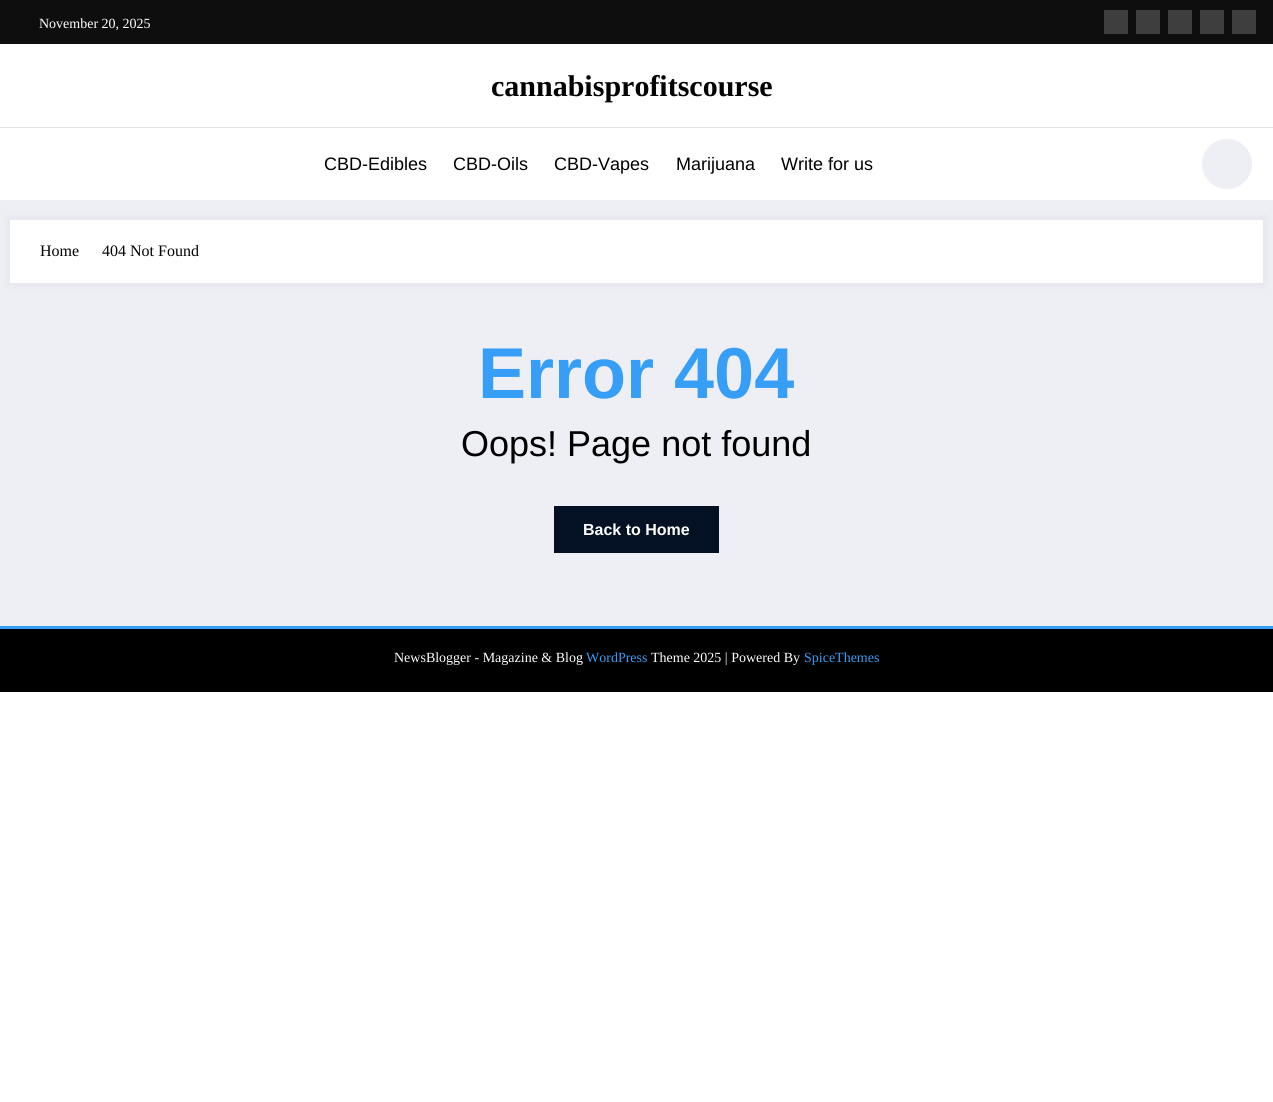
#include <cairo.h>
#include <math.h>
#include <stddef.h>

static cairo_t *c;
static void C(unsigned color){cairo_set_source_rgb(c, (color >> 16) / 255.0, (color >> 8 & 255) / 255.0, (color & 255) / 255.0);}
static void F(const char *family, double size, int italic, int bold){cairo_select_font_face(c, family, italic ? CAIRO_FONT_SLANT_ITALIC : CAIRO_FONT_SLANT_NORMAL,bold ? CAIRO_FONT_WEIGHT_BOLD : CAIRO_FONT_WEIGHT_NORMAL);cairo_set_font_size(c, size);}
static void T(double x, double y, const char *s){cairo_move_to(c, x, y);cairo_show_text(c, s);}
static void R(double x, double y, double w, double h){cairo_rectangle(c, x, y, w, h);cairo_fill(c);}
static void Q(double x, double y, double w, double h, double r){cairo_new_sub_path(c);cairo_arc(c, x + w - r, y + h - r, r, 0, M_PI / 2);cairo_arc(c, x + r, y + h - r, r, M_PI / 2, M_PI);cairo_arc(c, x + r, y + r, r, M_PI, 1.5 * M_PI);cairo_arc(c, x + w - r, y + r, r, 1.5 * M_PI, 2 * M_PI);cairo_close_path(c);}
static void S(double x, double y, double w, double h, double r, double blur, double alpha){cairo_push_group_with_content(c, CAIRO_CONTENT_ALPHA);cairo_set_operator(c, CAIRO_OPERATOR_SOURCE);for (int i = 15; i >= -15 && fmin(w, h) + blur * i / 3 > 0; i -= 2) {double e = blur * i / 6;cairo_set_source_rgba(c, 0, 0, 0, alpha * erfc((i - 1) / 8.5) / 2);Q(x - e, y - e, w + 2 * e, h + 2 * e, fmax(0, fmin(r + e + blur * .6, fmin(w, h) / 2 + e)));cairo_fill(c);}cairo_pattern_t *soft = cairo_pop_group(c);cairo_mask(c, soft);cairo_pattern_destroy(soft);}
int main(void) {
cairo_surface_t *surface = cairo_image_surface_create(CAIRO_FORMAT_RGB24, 1273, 1102);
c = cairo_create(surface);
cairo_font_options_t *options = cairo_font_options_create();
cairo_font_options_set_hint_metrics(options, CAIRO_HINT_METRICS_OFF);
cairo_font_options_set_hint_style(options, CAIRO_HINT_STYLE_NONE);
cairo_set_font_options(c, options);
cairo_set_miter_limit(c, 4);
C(0xffffff);
cairo_paint(c);
C(0xeeeef5);
R(0,200,1273,426);
C(0x0e0e0e);
R(0,0,1273,44);
F("Liberation Serif",14,0,0);
C(0xffffff);
T(39,28,"November 20, 2025");
C(0x3e3e3e);
R(1104,10,24,24);
R(1136,10,24,24);
R(1168,10,24,24);
R(1200,10,24,24);
R(1232,10,24,24);
F("Liberation Serif",30,0,1);
C(0x000000);
T(491,96,"cannabisprofitscourse");
C(0xe1e1e1);
R(0,127,1273,1);
F("Liberation Sans",18,0,0);
C(0x000000);
T(324,170,"CBD-Edibles");
T(453,170,"CBD-Oils");
T(554,170,"CBD-Vapes");
T(676,170,"Marijuana");
T(781,170,"Write for us");
C(0xeeeef5);
cairo_new_path(c);
cairo_arc(c,1227,164,25,0,2 * M_PI);
cairo_fill(c);
C(0x171723);
S(8,218,1257,67,0,4,.05);
C(0xffffff);
R(10,220,1253,63);
F("Liberation Serif",16,0,0);
C(0x000000);
T(40,256,"Home");
T(102,256,"404 Not Found");
F("Liberation Sans",72,0,1);
C(0x369ef6);
T(478,398,"Error 404");
F("Liberation Sans",36,0,0);
C(0x000000);
T(461,456,"Oops! Page not found");
C(0x041124);
R(554,506,165,47);
F("Liberation Sans",16,0,1);
C(0xffffff);
T(583,535,"Back to Home");
C(0x369ef6);
R(0,626,1273,3);
C(0x000000);
R(0,629,1273,63);
F("Liberation Serif",14,0,0);
C(0xffffff);
T(394,662,"NewsBlogger - Magazine & Blog");
C(0x369ef6);
T(586,662,"WordPress");
C(0xffffff);
T(651,662,"Theme 2025 | Powered By");
C(0x369ef6);
T(804,662,"SpiceThemes");
cairo_surface_write_to_png(surface, "o.png");
cairo_font_options_destroy(options);
cairo_destroy(c);
cairo_surface_destroy(surface);
return 0;
}
